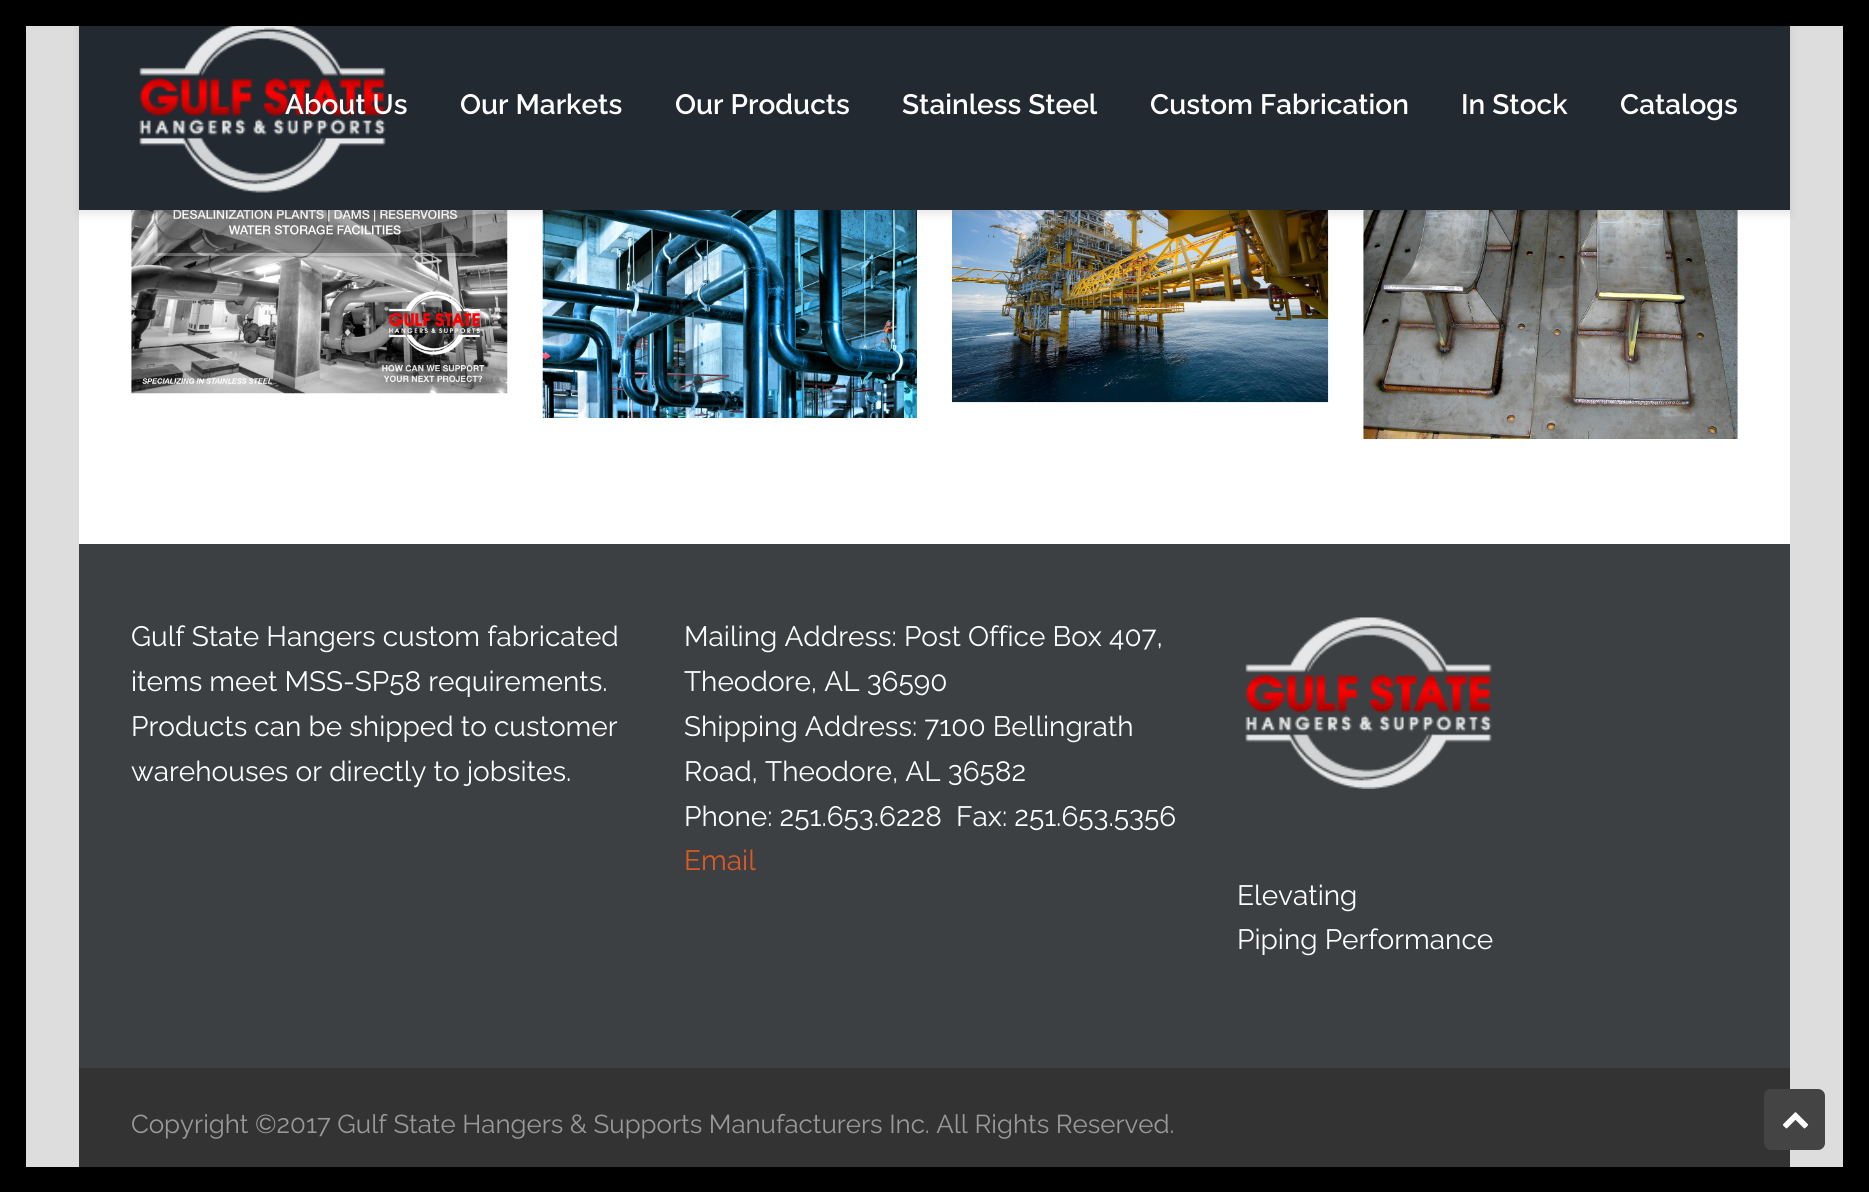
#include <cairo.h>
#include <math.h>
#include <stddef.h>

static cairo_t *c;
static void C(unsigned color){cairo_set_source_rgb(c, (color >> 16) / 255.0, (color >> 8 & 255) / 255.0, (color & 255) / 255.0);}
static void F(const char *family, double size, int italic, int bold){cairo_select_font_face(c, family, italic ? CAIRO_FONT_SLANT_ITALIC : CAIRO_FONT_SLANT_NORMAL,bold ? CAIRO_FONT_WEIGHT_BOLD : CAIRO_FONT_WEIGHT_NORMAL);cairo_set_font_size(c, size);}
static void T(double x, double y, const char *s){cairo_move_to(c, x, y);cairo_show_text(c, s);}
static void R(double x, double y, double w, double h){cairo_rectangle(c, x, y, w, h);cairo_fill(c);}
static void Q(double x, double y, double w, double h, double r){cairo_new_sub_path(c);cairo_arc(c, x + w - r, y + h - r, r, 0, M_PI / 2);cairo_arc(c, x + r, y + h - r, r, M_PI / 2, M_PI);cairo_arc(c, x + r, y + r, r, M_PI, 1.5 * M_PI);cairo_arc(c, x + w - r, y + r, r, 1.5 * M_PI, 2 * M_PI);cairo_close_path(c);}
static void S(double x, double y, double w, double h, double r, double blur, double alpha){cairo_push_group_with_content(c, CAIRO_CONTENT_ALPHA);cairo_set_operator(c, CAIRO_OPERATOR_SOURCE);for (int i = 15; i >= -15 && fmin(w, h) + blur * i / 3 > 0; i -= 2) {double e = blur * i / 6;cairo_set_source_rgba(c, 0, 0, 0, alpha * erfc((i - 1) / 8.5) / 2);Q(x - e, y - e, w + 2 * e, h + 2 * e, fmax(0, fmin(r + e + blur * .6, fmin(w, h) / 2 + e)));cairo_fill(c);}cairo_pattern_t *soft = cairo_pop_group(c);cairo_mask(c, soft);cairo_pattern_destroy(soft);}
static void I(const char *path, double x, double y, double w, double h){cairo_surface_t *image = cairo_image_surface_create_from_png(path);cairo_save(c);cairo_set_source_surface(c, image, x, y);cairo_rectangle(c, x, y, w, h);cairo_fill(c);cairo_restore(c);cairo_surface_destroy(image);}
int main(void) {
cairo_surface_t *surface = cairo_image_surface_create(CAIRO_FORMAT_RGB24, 1869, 1192);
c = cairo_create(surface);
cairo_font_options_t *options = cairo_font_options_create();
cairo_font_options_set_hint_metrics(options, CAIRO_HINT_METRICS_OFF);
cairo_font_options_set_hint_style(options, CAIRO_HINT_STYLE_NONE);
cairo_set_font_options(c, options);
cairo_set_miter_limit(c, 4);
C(0xdddddd);
cairo_paint(c);
C(0xffffff);
R(79,210,1711,334);
I("2.png",131,210,377,184);
I("3.png",542,210,375,208);
I("4.png",952,210,377,193);
I("5.png",1363,210,375,229);
C(0x000000);
S(79,4,1711,210,0,4.5,.1);
C(0x000000);
R(0,0,1869,26);
R(0,26,26,1141);
C(0x222931);
R(79,26,1711,184);
I("1.png",139,26,247,167);
F("Raleway SemiBold",28,0,0);
C(0xffffff);
T(285,114,"About Us");
T(460,114,"Our Markets");
T(675,114,"Our Products");
T(902,114,"Stainless Steel");
T(1150,114,"Custom Fabrication");
T(1461,114,"In Stock");
T(1620,114,"Catalogs");
C(0x3d4042);
R(79,544,1711,524);
F("Raleway",28,0,0);
C(0xffffff);
T(131,646,"Gulf State Hangers custom fabricated");
T(131,691,"items meet MSS-SP58 requirements.");
T(131,736,"Products can be shipped to customer");
T(131,781,"warehouses or directly to jobsites.");
T(684,646,"Mailing Address: Post Office Box 407,");
T(684,691,"Theodore, AL 36590");
T(684,736,"Shipping Address: 7100 Bellingrath");
T(684,781,"Road, Theodore, AL 36582");
T(684,826,"Phone: 251.653.6228  Fax: 251.653.5356");
C(0xdd5826);
T(684,870,"Email");
I("6.png",1245,617,247,172);
C(0xffffff);
T(1237,905,"Elevating");
T(1237,949,"Piping Performance");
C(0x333333);
R(79,1068,1711,99);
F("Raleway",25.85,0,0);
C(0x999999);
T(131,1133,"Copyright ©2017 Gulf State Hangers & Supports Manufacturers Inc. All Rights Reserved.");
C(0x444444);
Q(1764,1089,61,61,7);
cairo_fill(c);
I("7.png",1782,1112,27,17);
C(0x000000);
R(1843,26,26,1141);
R(0,1167,1869,25);
cairo_surface_write_to_png(surface, "o.png");
cairo_font_options_destroy(options);
cairo_destroy(c);
cairo_surface_destroy(surface);
return 0;
}
